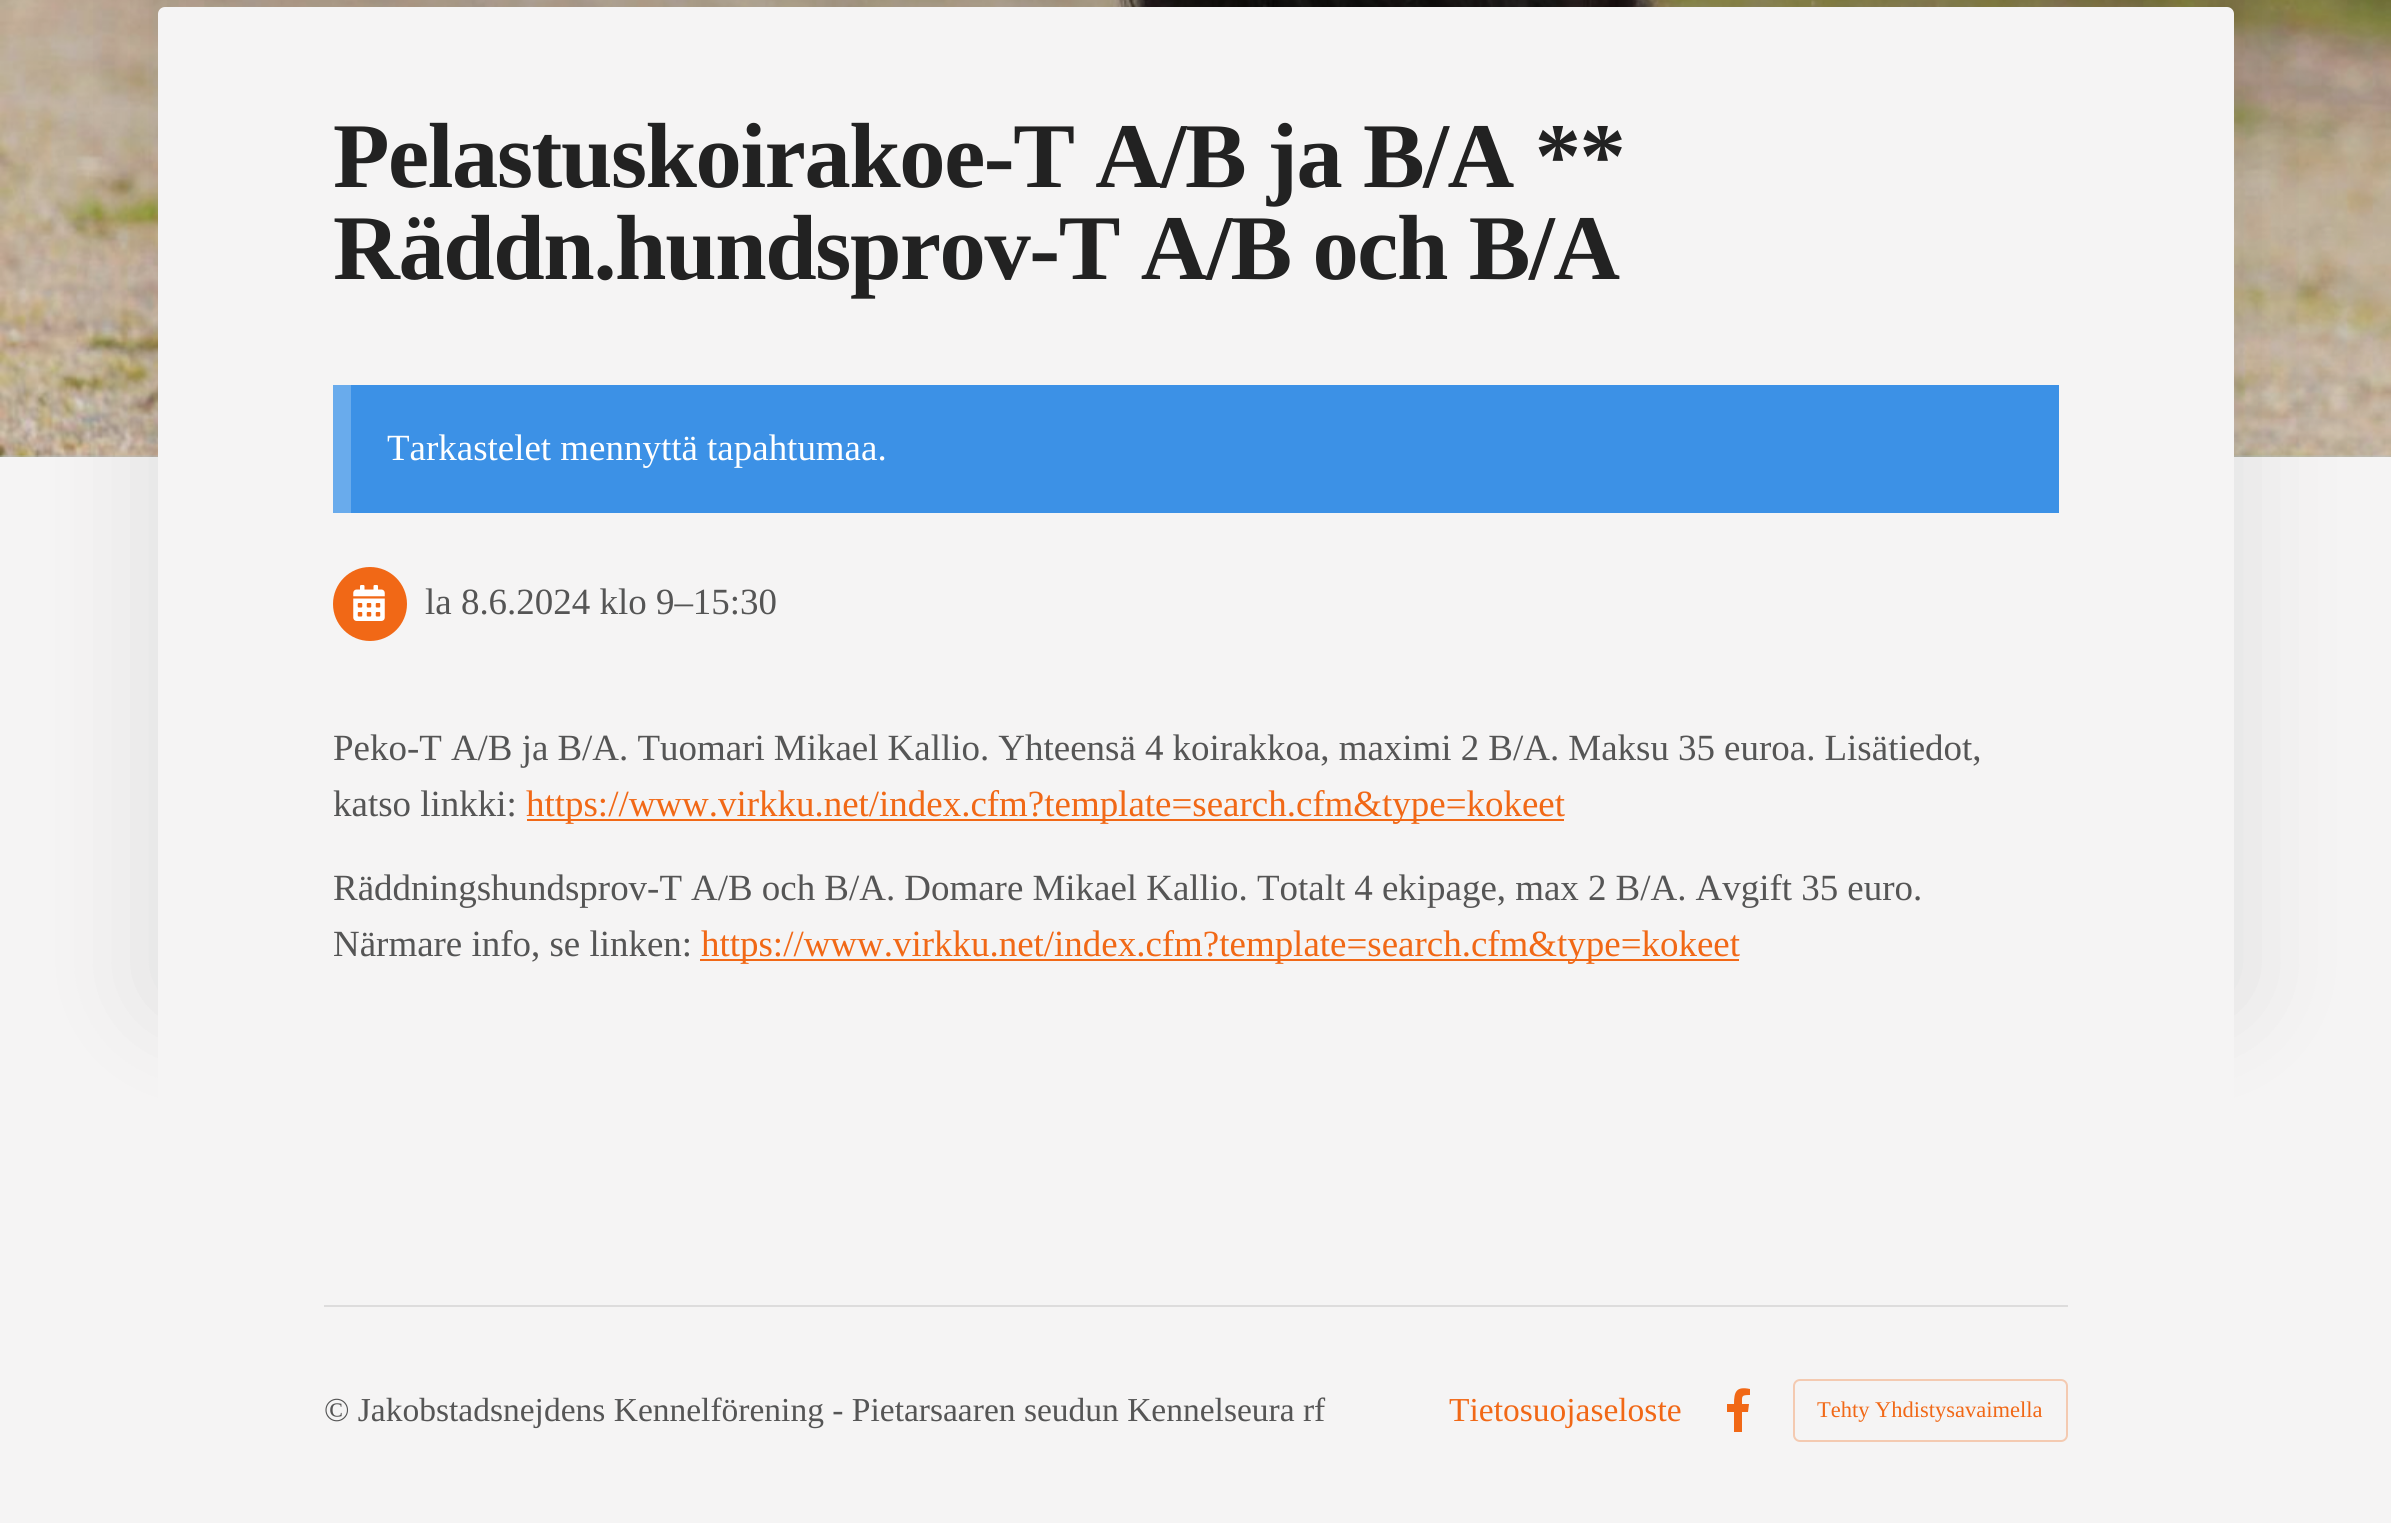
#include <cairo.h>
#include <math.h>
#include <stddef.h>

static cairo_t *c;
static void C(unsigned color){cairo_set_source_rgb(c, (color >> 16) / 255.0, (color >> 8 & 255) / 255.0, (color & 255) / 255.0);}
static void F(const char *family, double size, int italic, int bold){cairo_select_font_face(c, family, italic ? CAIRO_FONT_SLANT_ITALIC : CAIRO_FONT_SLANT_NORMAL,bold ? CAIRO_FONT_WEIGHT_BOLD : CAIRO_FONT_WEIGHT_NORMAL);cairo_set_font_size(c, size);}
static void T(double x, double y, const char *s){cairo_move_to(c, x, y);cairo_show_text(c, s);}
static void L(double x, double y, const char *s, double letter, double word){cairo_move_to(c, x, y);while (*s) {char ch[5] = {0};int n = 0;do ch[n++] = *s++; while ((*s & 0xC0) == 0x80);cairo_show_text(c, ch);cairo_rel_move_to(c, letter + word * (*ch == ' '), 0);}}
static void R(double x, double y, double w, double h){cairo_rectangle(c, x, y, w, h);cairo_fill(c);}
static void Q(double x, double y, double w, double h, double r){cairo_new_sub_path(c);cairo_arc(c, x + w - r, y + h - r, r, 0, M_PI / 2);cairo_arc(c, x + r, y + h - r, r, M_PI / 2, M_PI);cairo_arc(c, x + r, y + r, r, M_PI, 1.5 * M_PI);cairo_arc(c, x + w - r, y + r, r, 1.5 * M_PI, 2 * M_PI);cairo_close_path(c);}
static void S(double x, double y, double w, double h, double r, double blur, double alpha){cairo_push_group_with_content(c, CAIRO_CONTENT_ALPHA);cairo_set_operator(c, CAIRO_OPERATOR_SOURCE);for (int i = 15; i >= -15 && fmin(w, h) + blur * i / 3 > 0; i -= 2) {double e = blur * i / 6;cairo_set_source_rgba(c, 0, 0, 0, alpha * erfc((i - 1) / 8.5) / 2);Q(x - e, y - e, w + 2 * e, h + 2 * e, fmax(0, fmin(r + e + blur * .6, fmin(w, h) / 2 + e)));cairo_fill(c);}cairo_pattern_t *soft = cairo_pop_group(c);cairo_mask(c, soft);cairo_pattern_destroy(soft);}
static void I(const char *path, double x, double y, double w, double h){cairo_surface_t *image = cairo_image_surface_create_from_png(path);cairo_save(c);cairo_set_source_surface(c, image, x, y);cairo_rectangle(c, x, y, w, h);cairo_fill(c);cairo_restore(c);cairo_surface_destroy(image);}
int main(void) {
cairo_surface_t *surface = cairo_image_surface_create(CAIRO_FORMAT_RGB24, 2391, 1523);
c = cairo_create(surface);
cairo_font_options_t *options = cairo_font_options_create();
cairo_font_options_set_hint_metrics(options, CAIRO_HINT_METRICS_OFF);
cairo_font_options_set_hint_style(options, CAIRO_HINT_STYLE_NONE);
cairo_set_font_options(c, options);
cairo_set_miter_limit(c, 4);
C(0xf5f4f4);
cairo_paint(c);
C(0xb6c2c7);
R(0,455,2391,2);
I("1.png",0,0,2391,457);
C(0x000000);
S(158,-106,2076,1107,7,56,.1);
C(0xf5f4f4);
Q(158,7,2076,1107,7);
cairo_fill(c);
F("Liberation Serif",92.5,0,1);
C(0x222222);
L(333,187,"Pelastuskoirakoe-T A/B ja B/A **",-1.4,0);
L(333,279,"Räddn.hundsprov-T A/B och B/A",-1.4,0);
C(0x3c91e6);
R(351,385,1708,128);
C(0x69abec);
R(333,385,18,128);
F("Liberation Serif",36.95,0,0);
C(0xffffff);
T(387,460,"Tarkastelet mennyttä tapahtumaa.");
C(0xf16816);
cairo_new_path(c);
cairo_arc(c,370,604,37,0,2 * M_PI);
cairo_fill(c);
I("2.png",353,585,32,36);
C(0x555555);
T(425,614,"la 8.6.2024 klo 9–15:30");
L(333,760,"Peko-T A/B ja B/A. Tuomari Mikael Kallio. Yhteensä 4 koirakkoa, maximi 2 B/A. Maksu 35 euroa. Lisätiedot,",0,-.1);
T(333,816,"katso linkki:");
C(0xf16816);
R(527,819,1037,2);
T(526,816,"https://www.virkku.net/index.cfm?template=search.cfm&type=kokeet");
C(0x555555);
L(333,900,"Räddningshundsprov-T A/B och B/A. Domare Mikael Kallio. Totalt 4 ekipage, max 2 B/A. Avgift 35 euro.",0,-.1);
T(333,956,"Närmare info, se linken:");
C(0xf16816);
R(700,959,1039,2);
T(701,956,"https://www.virkku.net/index.cfm?template=search.cfm&type=kokeet");
C(0xdddcdc);
R(324,1305,1744,2);
F("Liberation Serif",33.5,0,0);
C(0x555555);
T(324,1421,"© Jakobstadsnejdens Kennelförening - Pietarsaaren seudun Kennelseura rf");
C(0xf16816);
T(1449,1421,"Tietosuojaseloste");
cairo_new_path(c);
cairo_move_to(c,1750,1389);
cairo_line_to(c,1750,1395);
cairo_curve_to(c,1741,1395,1742,1396,1742,1404);
cairo_line_to(c,1749,1404);
cairo_line_to(c,1748,1412);
cairo_line_to(c,1742,1412);
cairo_line_to(c,1742,1432);
cairo_line_to(c,1734,1432);
cairo_line_to(c,1734,1412);
cairo_line_to(c,1727,1412);
cairo_line_to(c,1727,1404);
cairo_line_to(c,1734,1404);
cairo_curve_to(c,1734,1392,1736,1386,1750,1389);
cairo_close_path(c);
cairo_fill(c);
Q(1794,1380,273,61,6);
C(0xf4cab1);
cairo_stroke(c);
F("Liberation Serif",22.5,0,0);
C(0xf16816);
T(1817,1417,"Tehty Yhdistysavaimella");
cairo_surface_write_to_png(surface, "o.png");
cairo_font_options_destroy(options);
cairo_destroy(c);
cairo_surface_destroy(surface);
return 0;
}
